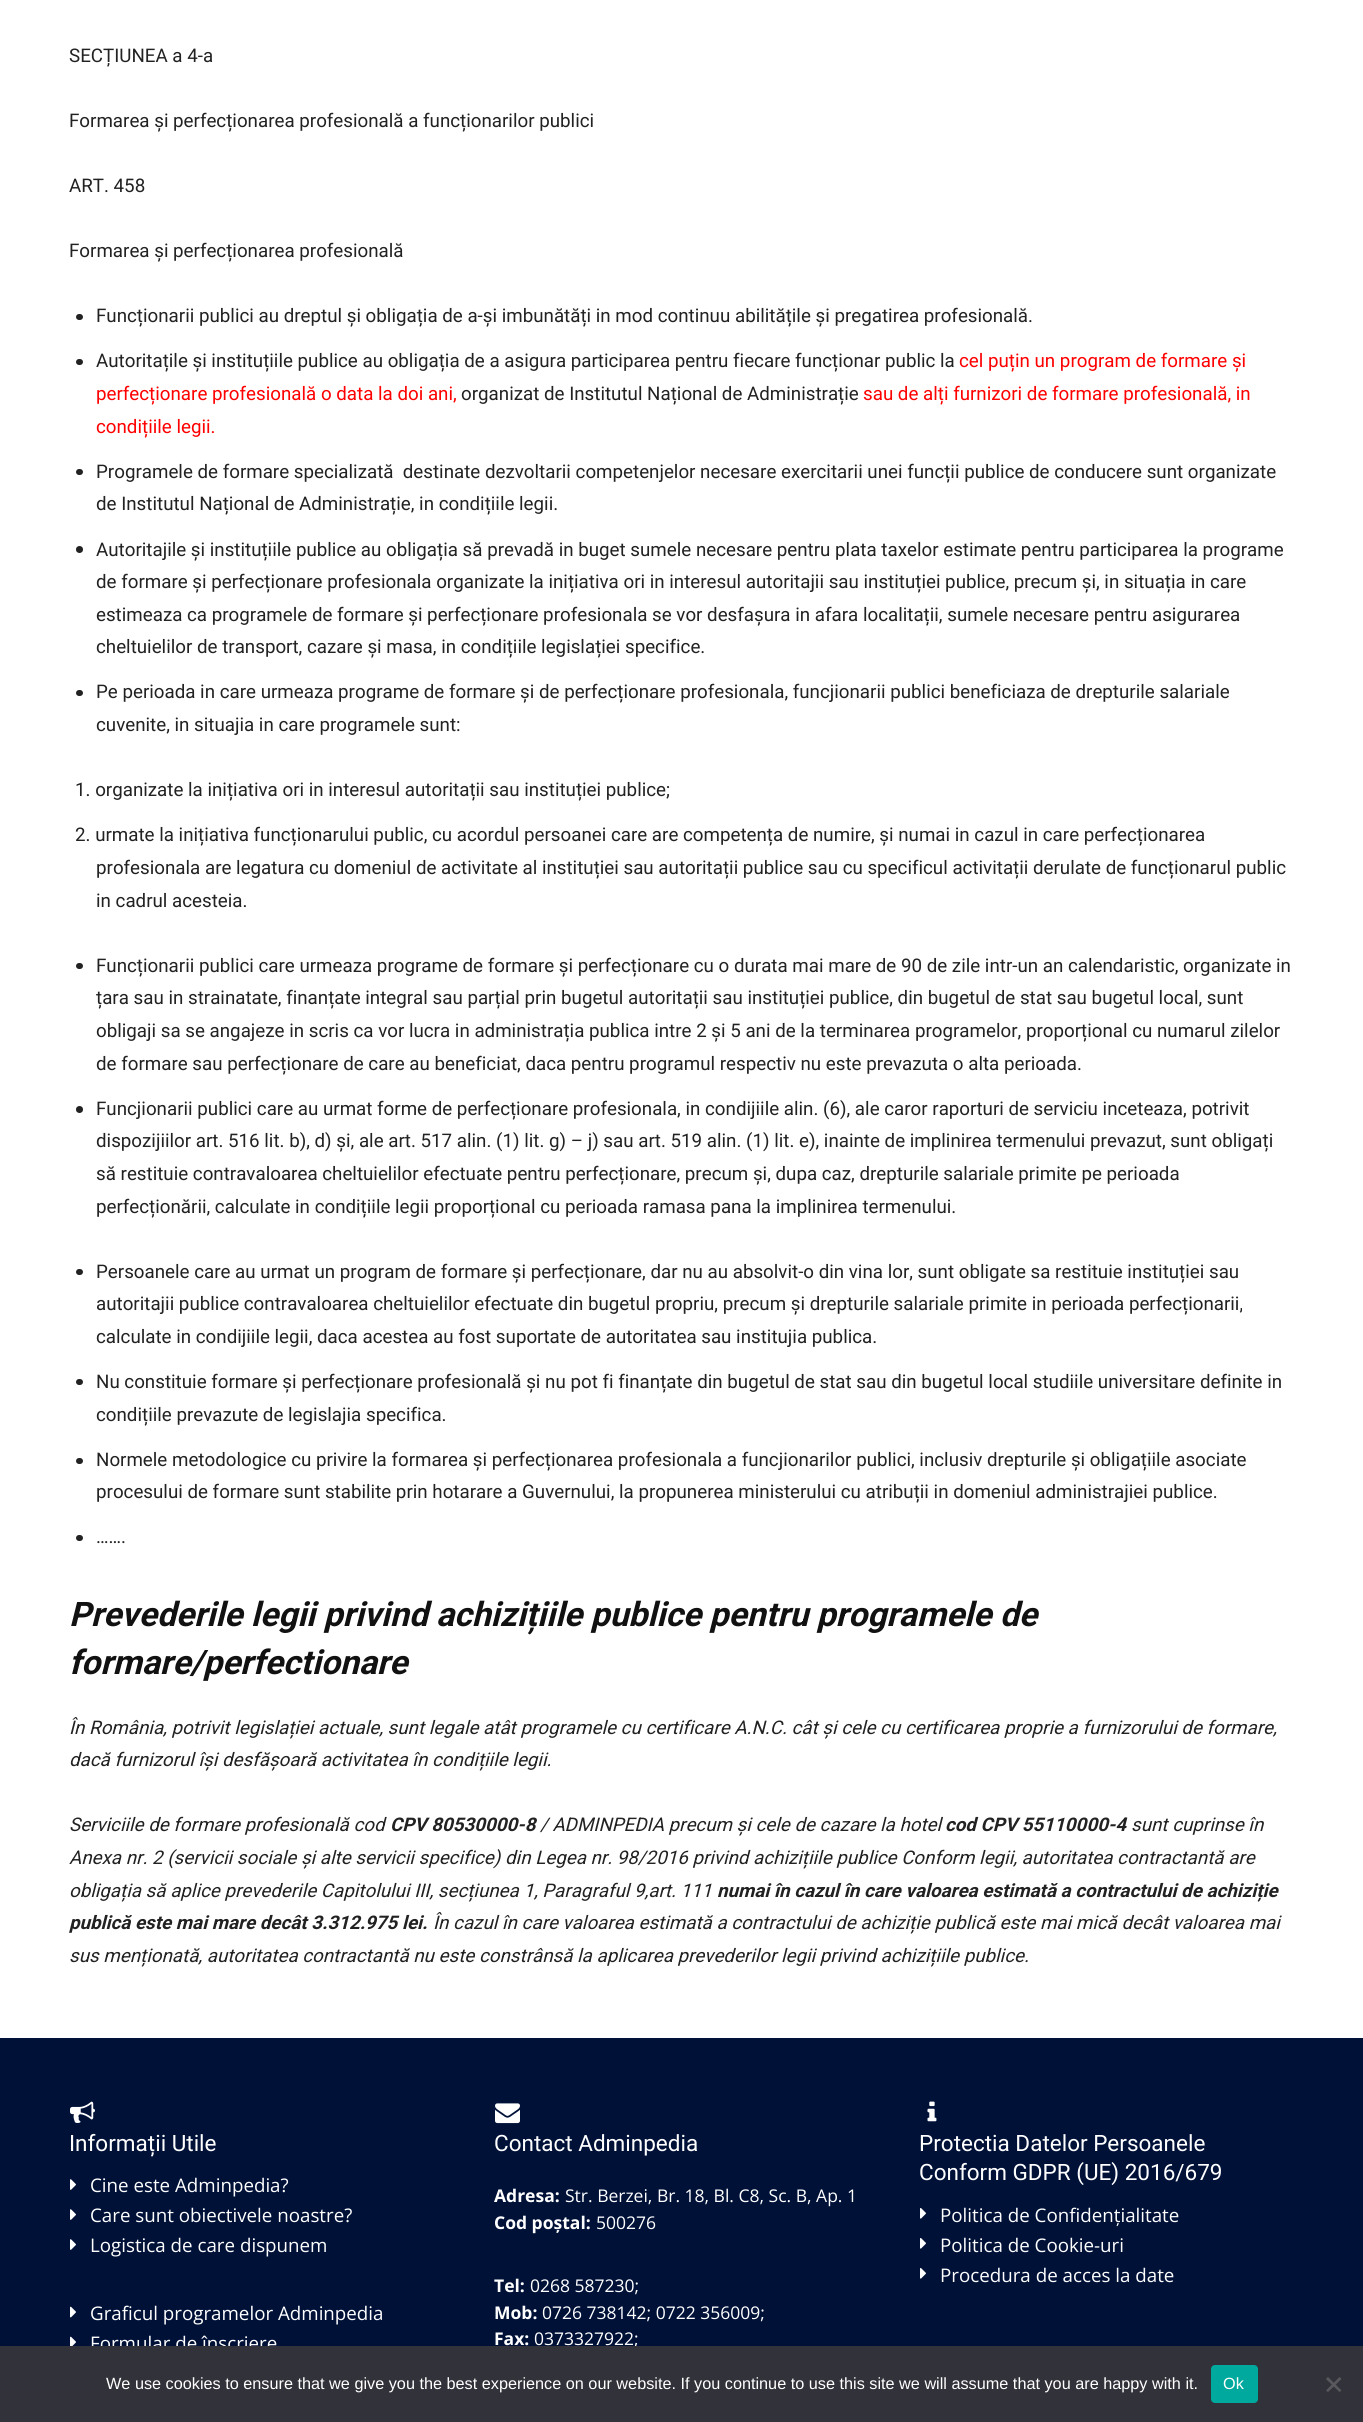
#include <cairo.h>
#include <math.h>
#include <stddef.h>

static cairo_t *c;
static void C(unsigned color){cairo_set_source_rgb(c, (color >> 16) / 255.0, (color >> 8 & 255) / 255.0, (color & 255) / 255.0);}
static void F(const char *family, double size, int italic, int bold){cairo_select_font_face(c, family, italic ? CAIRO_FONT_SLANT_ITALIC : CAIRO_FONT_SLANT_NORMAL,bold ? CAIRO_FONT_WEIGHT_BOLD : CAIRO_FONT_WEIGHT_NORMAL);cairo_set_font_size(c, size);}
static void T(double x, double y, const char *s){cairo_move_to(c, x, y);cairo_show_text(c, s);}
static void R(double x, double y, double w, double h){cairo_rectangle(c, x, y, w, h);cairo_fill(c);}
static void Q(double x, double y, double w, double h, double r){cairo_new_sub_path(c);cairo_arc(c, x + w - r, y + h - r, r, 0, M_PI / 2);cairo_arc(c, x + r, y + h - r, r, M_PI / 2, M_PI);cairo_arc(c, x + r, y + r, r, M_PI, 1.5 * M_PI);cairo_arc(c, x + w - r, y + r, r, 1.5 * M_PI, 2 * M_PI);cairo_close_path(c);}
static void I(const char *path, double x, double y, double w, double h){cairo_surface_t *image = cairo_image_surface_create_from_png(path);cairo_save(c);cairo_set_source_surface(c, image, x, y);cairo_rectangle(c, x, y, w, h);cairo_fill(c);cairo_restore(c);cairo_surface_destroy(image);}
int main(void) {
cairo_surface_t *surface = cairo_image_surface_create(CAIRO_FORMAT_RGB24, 1363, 2422);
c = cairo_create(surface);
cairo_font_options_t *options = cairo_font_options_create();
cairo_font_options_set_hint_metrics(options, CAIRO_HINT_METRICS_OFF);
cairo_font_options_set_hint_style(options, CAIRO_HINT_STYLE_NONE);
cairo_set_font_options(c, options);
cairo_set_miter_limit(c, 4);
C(0xffffff);
cairo_paint(c);
F("Roboto",18.75,0,0);
C(0x222222);
T(69,62,"SECȚIUNEA a 4-a");
T(69,127,"Formarea și perfecționarea profesională a funcționarilor publici");
T(69,192,"ART. 458");
T(69,257,"Formarea și perfecționarea profesională");
Q(76,314,7,6,3);
cairo_fill(c);
T(96,322,"Funcționarii publici au dreptul și obligația de a-și imbunătăți in mod continuu abilitățile și pregatirea profesională.");
Q(76,359,7,6,3);
cairo_fill(c);
T(96,367,"Autoritațile și instituțiile publice au obligația de a asigura participarea pentru fiecare funcționar public la");
C(0xff0000);
T(959,367,"cel puțin un program de formare și");
T(96,400,"perfecționare profesională o data la doi ani,");
C(0x222222);
T(461,400,"organizat de Institutul Național de Administrație");
C(0xff0000);
T(863,400,"sau de alți furnizori de formare profesională, in");
T(96,433,"condițiile legii.");
C(0x222222);
Q(76,469,7,6,3);
cairo_fill(c);
T(96,478,"Programele de formare specializată  destinate dezvoltarii competenjelor necesare exercitarii unei funcții publice de conducere sunt organizate");
T(96,510,"de Institutul Național de Administrație, in condițiile legii.");
cairo_new_path(c);
cairo_arc(c,79.5,549.5,3.5,0,2 * M_PI);
cairo_fill(c);
T(96,556,"Autoritajile și instituțiile publice au obligația să prevadă in buget sumele necesare pentru plata taxelor estimate pentru participarea la programe");
T(96,588,"de formare și perfecționare profesionala organizate la inițiativa ori in interesul autoritajii sau instituției publice, precum și, in situația in care");
T(96,621,"estimeaza ca programele de formare și perfecționare profesionala se vor desfașura in afara localitații, sumele necesare pentru asigurarea");
T(96,653,"cheltuielilor de transport, cazare și masa, in condițiile legislației specifice.");
Q(76,690,7,6,3);
cairo_fill(c);
T(96,698,"Pe perioada in care urmeaza programe de formare și de perfecționare profesionala, funcjionarii publici beneficiaza de drepturile salariale");
T(96,731,"cuvenite, in situajia in care programele sunt:");
T(75,796,"1. organizate la inițiativa ori in interesul autoritații sau instituției publice;");
T(75,841,"2. urmate la inițiativa funcționarului public, cu acordul persoanei care are competența de numire, și numai in cazul in care perfecționarea");
T(96,874,"profesionala are legatura cu domeniul de activitate al instituției sau autoritații publice sau cu specificul activitații derulate de funcționarul public");
T(96,907,"in cadrul acesteia.");
Q(76,963,7,6,3);
cairo_fill(c);
T(96,972,"Funcționarii publici care urmeaza programe de formare și perfecționare cu o durata mai mare de 90 de zile intr-un an calendaristic, organizate in");
T(96,1004,"țara sau in strainatate, finanțate integral sau parțial prin bugetul autoritații sau instituției publice, din bugetul de stat sau bugetul local, sunt");
T(96,1037,"obligaji sa se angajeze in scris ca vor lucra in administrația publica intre 2 și 5 ani de la terminarea programelor, proporțional cu numarul zilelor");
T(96,1070,"de formare sau perfecționare de care au beneficiat, daca pentru programul respectiv nu este prevazuta o alta perioada.");
cairo_new_path(c);
cairo_arc(c,79.5,1109.5,3.5,0,2 * M_PI);
cairo_fill(c);
T(96,1115,"Funcjionarii publici care au urmat forme de perfecționare profesionala, in condijiile alin. (6), ale caror raporturi de serviciu inceteaza, potrivit");
T(96,1147,"dispozijiilor art. 516 lit. b), d) și, ale art. 517 alin. (1) lit. g) – j) sau art. 519 alin. (1) lit. e), inainte de implinirea termenului prevazut, sunt obligați");
T(96,1180,"să restituie contravaloarea cheltuielilor efectuate pentru perfecționare, precum și, dupa caz, drepturile salariale primite pe perioada");
T(96,1213,"perfecționării, calculate in condițiile legii proporțional cu perioada ramasa pana la implinirea termenului.");
Q(76,1269,7,6,3);
cairo_fill(c);
T(96,1278,"Persoanele care au urmat un program de formare și perfecționare, dar nu au absolvit-o din vina lor, sunt obligate sa restituie instituției sau");
T(96,1310,"autoritajii publice contravaloarea cheltuielilor efectuate din bugetul propriu, precum și drepturile salariale primite in perioada perfecționarii,");
T(96,1343,"calculate in condijiile legii, daca acestea au fost suportate de autoritatea sau institujia publica.");
Q(76,1379,7,6,3);
cairo_fill(c);
T(96,1388,"Nu constituie formare și perfecționare profesională și nu pot fi finanțate din bugetul de stat sau din bugetul local studiile universitare definite in");
T(96,1421,"condițiile prevazute de legislajia specifica.");
Q(76,1458,7,6,3);
cairo_fill(c);
T(96,1466,"Normele metodologice cu privire la formarea și perfecționarea profesionala a funcjionarilor publici, inclusiv drepturile și obligațiile asociate");
T(96,1498,"procesului de formare sunt stabilite prin hotarare a Guvernului, la propunerea ministerului cu atribuții in domeniul administrajiei publice.");
Q(76,1535,7,6,3);
cairo_fill(c);
T(96,1543,"…….");
F("Roboto",33.75,1,1);
C(0x111111);
T(69,1626,"Prevederile legii privind achizițiile publice pentru programele de");
T(69,1674,"formare/perfectionare");
F("Roboto",18.75,1,0);
C(0x222222);
T(69,1734,"În România, potrivit legislației actuale, sunt legale atât programele cu certificare A.N.C. cât și cele cu certificarea proprie a furnizorului de formare,");
T(69,1766,"dacă furnizorul își desfășoară activitatea în condițiile legii.");
T(69,1831,"Serviciile de formare profesională cod");
F("Roboto",18.75,1,1);
T(390,1831,"CPV 80530000-8");
F("Roboto",18.75,1,0);
T(540,1831,"/ ADMINPEDIA precum și cele de cazare la hotel");
F("Roboto",18.75,1,1);
T(945,1831,"cod CPV 55110000-4");
F("Roboto",18.75,1,0);
T(1131,1831,"sunt cuprinse în");
T(69,1864,"Anexa nr. 2 (servicii sociale și alte servicii specifice) din Legea nr. 98/2016 privind achizițiile publice Conform legii, autoritatea contractantă are");
T(69,1897,"obligația să aplice prevederile Capitolului III, secțiunea 1, Paragraful 9,art. 111");
F("Roboto",18.75,1,1);
T(717,1897,"numai în cazul în care valoarea estimată a contractului de achiziție");
T(69,1929,"publică este mai mare decât 3.312.975 lei.");
F("Roboto",18.75,1,0);
T(433,1929,"În cazul în care valoarea estimată a contractului de achiziție publică este mai mică decât valoarea mai");
T(69,1962,"sus menționată, autoritatea contractantă nu este constrânsă la aplicarea prevederilor legii privind achizițiile publice.");
C(0x001138);
R(0,2038,1363,308);
I("1.png",70,2101,25,22);
F("Roboto",22.5,0,0);
C(0xffffff);
T(69,2151,"Informații Utile");
I("2.png",70,2179,6,11);
F("Open Sans",18.75,0,0);
T(90,2192,"Cine este Adminpedia?");
I("2.png",70,2209,6,11);
T(90,2222,"Care sunt obiectivele noastre?");
I("2.png",70,2239,6,11);
T(90,2252,"Logistica de care dispunem");
I("3.png",70,2306,6,12);
T(90,2320,"Graficul programelor Adminpedia");
I("4.png",70,2336,6,10);
T(90,2350,"Formular de înscriere");
I("5.png",495,2103,25,21);
F("Roboto",22.5,0,0);
T(494,2151,"Contact Adminpedia");
F("Open Sans",17.5,0,1);
T(494,2202,"Adresa:");
F("Open Sans",17.5,0,0);
T(565,2202,"Str. Berzei, Br. 18, Bl. C8, Sc. B, Ap. 1");
F("Open Sans",17.5,0,1);
T(494,2229,"Cod poștal:");
F("Open Sans",17.5,0,0);
T(596,2229,"500276");
F("Open Sans",17.5,0,1);
T(494,2292,"Tel:");
F("Open Sans",17.5,0,0);
T(530,2292,"0268 587230;");
F("Open Sans",17.5,0,1);
T(494,2319,"Mob:");
F("Open Sans",17.5,0,0);
T(542,2319,"0726 738142; 0722 356009;");
F("Open Sans",17.5,0,1);
T(494,2345,"Fax:");
F("Open Sans",17.5,0,0);
T(534,2345,"0373327922;");
I("6.png",927,2101,10,21);
F("Roboto",22.5,0,0);
T(919,2151,"Protectia Datelor Persoanele");
T(919,2180,"Conform GDPR (UE) 2016/679");
I("7.png",920,2208,6,11);
F("Open Sans",18.75,0,0);
T(940,2222,"Politica de Confidențialitate");
I("7.png",920,2238,6,11);
T(940,2252,"Politica de Cookie-uri");
I("7.png",920,2268,6,11);
T(940,2282,"Procedura de acces la date");
C(0x32323a);
R(0,2346,1363,76);
F("Liberation Sans",16.25,0,0);
C(0xffffff);
T(106,2389,"We use cookies to ensure that we give you the best experience on our website. If you continue to use this site we will assume that you are happy with it.");
C(0x00a99d);
Q(1211,2365,47,38,4);
cairo_fill(c);
C(0xffffff);
T(1223,2389,"Ok");
C(0x59595d);
cairo_new_path(c);
cairo_move_to(c,1339.5,2377);
cairo_line_to(c,1341.5,2379);
cairo_line_to(c,1328,2392);
cairo_line_to(c,1326,2390.5);
cairo_close_path(c);
cairo_fill(c);
cairo_new_path(c);
cairo_move_to(c,1326,2379);
cairo_line_to(c,1328,2377);
cairo_line_to(c,1341.5,2390.5);
cairo_line_to(c,1339.5,2392);
cairo_close_path(c);
cairo_fill(c);
cairo_surface_write_to_png(surface, "o.png");
cairo_font_options_destroy(options);
cairo_destroy(c);
cairo_surface_destroy(surface);
return 0;
}
